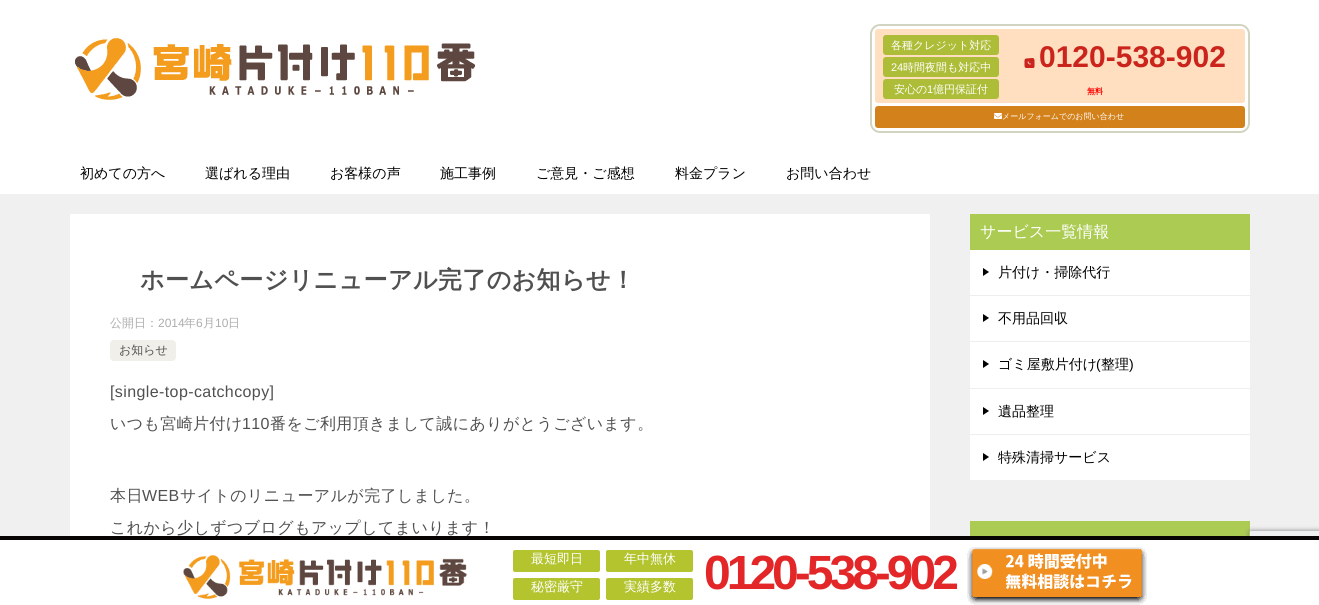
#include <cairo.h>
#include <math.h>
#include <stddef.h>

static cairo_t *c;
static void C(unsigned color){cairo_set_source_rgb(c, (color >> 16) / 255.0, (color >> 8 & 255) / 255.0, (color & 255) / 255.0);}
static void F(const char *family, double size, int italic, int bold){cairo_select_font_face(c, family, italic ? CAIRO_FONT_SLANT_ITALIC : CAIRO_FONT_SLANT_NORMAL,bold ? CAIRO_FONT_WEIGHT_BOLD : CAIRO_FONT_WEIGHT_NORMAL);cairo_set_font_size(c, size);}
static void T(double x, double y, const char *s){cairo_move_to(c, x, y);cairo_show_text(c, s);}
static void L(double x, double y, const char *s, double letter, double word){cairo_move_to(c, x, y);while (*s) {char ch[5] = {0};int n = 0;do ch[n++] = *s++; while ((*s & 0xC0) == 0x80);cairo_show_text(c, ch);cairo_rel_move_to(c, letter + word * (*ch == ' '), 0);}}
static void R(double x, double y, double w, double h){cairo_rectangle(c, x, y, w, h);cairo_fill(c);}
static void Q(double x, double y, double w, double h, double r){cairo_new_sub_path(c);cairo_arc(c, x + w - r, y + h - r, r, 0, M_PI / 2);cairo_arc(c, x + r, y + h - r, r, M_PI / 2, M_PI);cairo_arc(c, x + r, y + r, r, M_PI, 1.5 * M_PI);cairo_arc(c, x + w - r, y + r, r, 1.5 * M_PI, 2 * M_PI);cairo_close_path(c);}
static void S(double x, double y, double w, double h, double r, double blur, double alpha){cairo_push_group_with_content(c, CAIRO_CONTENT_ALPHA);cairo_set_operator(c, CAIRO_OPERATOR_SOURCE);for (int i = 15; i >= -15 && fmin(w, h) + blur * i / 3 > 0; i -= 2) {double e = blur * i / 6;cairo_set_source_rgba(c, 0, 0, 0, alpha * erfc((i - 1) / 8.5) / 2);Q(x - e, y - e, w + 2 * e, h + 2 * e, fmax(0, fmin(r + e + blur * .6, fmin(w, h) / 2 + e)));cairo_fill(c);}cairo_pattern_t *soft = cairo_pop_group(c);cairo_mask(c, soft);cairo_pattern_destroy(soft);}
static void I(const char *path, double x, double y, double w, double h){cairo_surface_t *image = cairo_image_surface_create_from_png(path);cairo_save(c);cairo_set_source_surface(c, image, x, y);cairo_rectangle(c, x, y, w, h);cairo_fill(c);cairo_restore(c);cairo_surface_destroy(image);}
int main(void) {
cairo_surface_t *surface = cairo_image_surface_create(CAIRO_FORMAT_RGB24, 1319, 605);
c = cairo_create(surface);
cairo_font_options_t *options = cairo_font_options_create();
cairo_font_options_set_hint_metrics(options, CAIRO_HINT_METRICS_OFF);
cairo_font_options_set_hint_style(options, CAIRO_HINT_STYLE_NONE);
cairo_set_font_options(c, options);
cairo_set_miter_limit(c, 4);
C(0xf0f0f0);
cairo_paint(c);
C(0xffffff);
R(0,0,1319,194);
I("1.png",75,38,401,62);
Q(871,25,378,107,9);
C(0xd1d4c0);
cairo_stroke(c);
C(0xffdfbf);
Q(875,29,370,74,3);
cairo_fill(c);
C(0xadbd38);
Q(883,35,116,20,3);
cairo_fill(c);
F("WenQuanYi Zen Hei Medium",11,0,0);
C(0xffffff);
T(891,49,"各種クレジット対応");
C(0xadbd38);
Q(883,57,116,20,3);
cairo_fill(c);
F("Liberation Sans",11,0,0);
C(0xffffff);
T(891,71,"24");
F("WenQuanYi Zen Hei Medium",11,0,0);
T(903,71,"時間夜間も対応中");
C(0xadbd38);
Q(883,79,116,20,3);
cairo_fill(c);
C(0xffffff);
T(894,93,"安心の");
F("Liberation Sans",11,0,0);
T(927,93,"1");
F("WenQuanYi Zen Hei Medium",11,0,0);
T(933,93,"億円保証付");
C(0xcb241d);
cairo_new_path(c);
cairo_move_to(c,1032.5,58);
cairo_line_to(c,1026,58.5);
cairo_curve_to(c,1024,59,1024.5,61.5,1024.5,63);
cairo_curve_to(c,1024.5,65,1024,68,1026.5,68);
cairo_line_to(c,1033.5,68);
cairo_curve_to(c,1035,67.5,1034.5,65,1034.5,63);
cairo_curve_to(c,1034.5,61.5,1035,58,1032.5,58);
cairo_close_path(c);
cairo_fill(c);
I("2.png",1027,61,4,4);
F("Liberation Sans",30,0,1);
T(1039,67,"0120-538-902");
F("WenQuanYi Zen Hei",8,0,1);
C(0xff0000);
T(1087,94,"無料");
C(0xd3811b);
Q(875,106,370,22,3);
cairo_fill(c);
I("3.png",994,113,8,6);
F("WenQuanYi Zen Hei Medium",8,0,0);
C(0xffffff);
T(1002,119,"メールフォームでのお問い合わせ");
F("WenQuanYi Zen Hei Medium",14,0,0);
C(0x000000);
T(80,178,"初めての方へ");
T(205,178,"選ばれる理由");
T(330,178,"お客様の声");
T(440,178,"施工事例");
T(536,178,"ご意見・ご感想");
T(675,178,"料金プラン");
T(786,178,"お問い合わせ");
C(0xffffff);
R(70,214,860,322);
F("WenQuanYi Zen Hei",24,0,1);
C(0x505050);
L(140,288,"ホームページリニューアル完了のお知らせ！",.4,0);
F("WenQuanYi Zen Hei Medium",12,0,0);
C(0xadadad);
T(110,327,"公開日：");
F("Liberation Sans",12,0,0);
T(158,327,"2014");
F("WenQuanYi Zen Hei Medium",12,0,0);
T(184,327,"年");
F("Liberation Sans",12,0,0);
T(196,327,"6");
F("WenQuanYi Zen Hei Medium",12,0,0);
T(203,327,"月");
F("Liberation Sans",12,0,0);
T(215,327,"10");
F("WenQuanYi Zen Hei Medium",12,0,0);
T(228,327,"日");
C(0xf0efe9);
Q(110,340,66,21,4);
cairo_fill(c);
C(0x505050);
T(119,354,"お知らせ");
F("Liberation Sans",16,0,0);
L(110,397,"[single-top-catchcopy]",.4,0);
F("WenQuanYi Zen Hei Medium",16,0,0);
L(110,429,"いつも宮崎片付け",.4,0);
F("Liberation Sans",16,0,0);
L(242,429,"110",.4,0);
F("WenQuanYi Zen Hei Medium",16,0,0);
L(270,429,"番をご利用頂きまして誠にありがとうございます。",.4,0);
L(110,501,"本日",.4,0);
F("Liberation Sans",16,0,0);
L(142,501,"WEB",.4,0);
F("WenQuanYi Zen Hei Medium",16,0,0);
L(180,501,"サイトのリニューアルが完了しました。",.4,0);
L(110,533,"これから少しずつブログもアップしてまいります！",.4,0);
C(0xffffff);
R(970,250,280,230);
C(0xaccb52);
R(970,214,280,36);
C(0xffffff);
T(980,237,"サービス一覧情報");
C(0xeeeeee);
R(970,295,280,1);
C(0x000000);
cairo_new_path(c);
cairo_move_to(c,983,276);
cairo_line_to(c,983,268);
cairo_line_to(c,989,272);
cairo_close_path(c);
cairo_fill(c);
F("WenQuanYi Zen Hei Medium",14,0,0);
T(998,277,"片付け・掃除代行");
C(0xeeeeee);
R(970,341,280,1);
C(0x000000);
cairo_new_path(c);
cairo_move_to(c,983,322);
cairo_line_to(c,983,314);
cairo_line_to(c,989,318);
cairo_close_path(c);
cairo_fill(c);
T(998,323,"不用品回収");
C(0xeeeeee);
R(970,388,280,1);
C(0x000000);
cairo_new_path(c);
cairo_move_to(c,983,368);
cairo_line_to(c,983,360);
cairo_line_to(c,989,364);
cairo_close_path(c);
cairo_fill(c);
T(998,369,"ゴミ屋敷片付け");
F("Liberation Sans",14,0,0);
T(1096,369,"(");
F("WenQuanYi Zen Hei Medium",14,0,0);
T(1101,369,"整理");
F("Liberation Sans",14,0,0);
T(1129,369,")");
C(0xeeeeee);
R(970,434,280,1);
C(0x000000);
cairo_new_path(c);
cairo_move_to(c,983,415);
cairo_line_to(c,983,407);
cairo_line_to(c,989,411);
cairo_close_path(c);
cairo_fill(c);
F("WenQuanYi Zen Hei Medium",14,0,0);
T(998,416,"遺品整理");
cairo_new_path(c);
cairo_move_to(c,983,461);
cairo_line_to(c,983,453);
cairo_line_to(c,989,457);
cairo_close_path(c);
cairo_fill(c);
T(998,462,"特殊清掃サービス");
C(0xaccb52);
R(970,521,280,15);
cairo_save(c);
cairo_set_fill_rule(c,CAIRO_FILL_RULE_EVEN_ODD);
cairo_new_path(c);
cairo_move_to(c,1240,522);
cairo_line_to(c,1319,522);
cairo_line_to(c,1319,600);
cairo_line_to(c,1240,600);
cairo_close_path(c);
cairo_move_to(c,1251,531);
cairo_line_to(c,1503,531);
cairo_curve_to(c,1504,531,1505,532,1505,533);
cairo_line_to(c,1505,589);
cairo_curve_to(c,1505,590,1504,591,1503,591);
cairo_line_to(c,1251,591);
cairo_curve_to(c,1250,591,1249,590,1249,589);
cairo_line_to(c,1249,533);
cairo_curve_to(c,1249,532,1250,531,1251,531);
cairo_close_path(c);
cairo_clip(c);
C(0x808080);
S(1249,531,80,60,2,2.5,1);
cairo_restore(c);
C(0xffffff);
R(0,540,1319,65);
C(0x080404);
R(0,536,1319,4);
I("4.png",183,555,284,44);
C(0xb3c42e);
Q(513,550,87,22,2);
cairo_fill(c);
F("WenQuanYi Zen Hei Medium",13,0,0);
C(0xffffff);
T(531,563,"最短即日");
C(0xb3c42e);
Q(606,550,87,22,2);
cairo_fill(c);
C(0xffffff);
T(624,563,"年中無休");
C(0xb3c42e);
Q(513,578,87,22,2);
cairo_fill(c);
C(0xffffff);
T(531,591,"秘密厳守");
C(0xb3c42e);
Q(606,578,87,22,2);
cairo_fill(c);
C(0xffffff);
T(624,591,"実績多数");
F("Liberation Sans",48,0,1);
C(0xe32728);
L(704,589,"0120-538-902",-4,0);
I("5.png",967,547,180,58);
cairo_surface_write_to_png(surface, "o.png");
cairo_font_options_destroy(options);
cairo_destroy(c);
cairo_surface_destroy(surface);
return 0;
}
